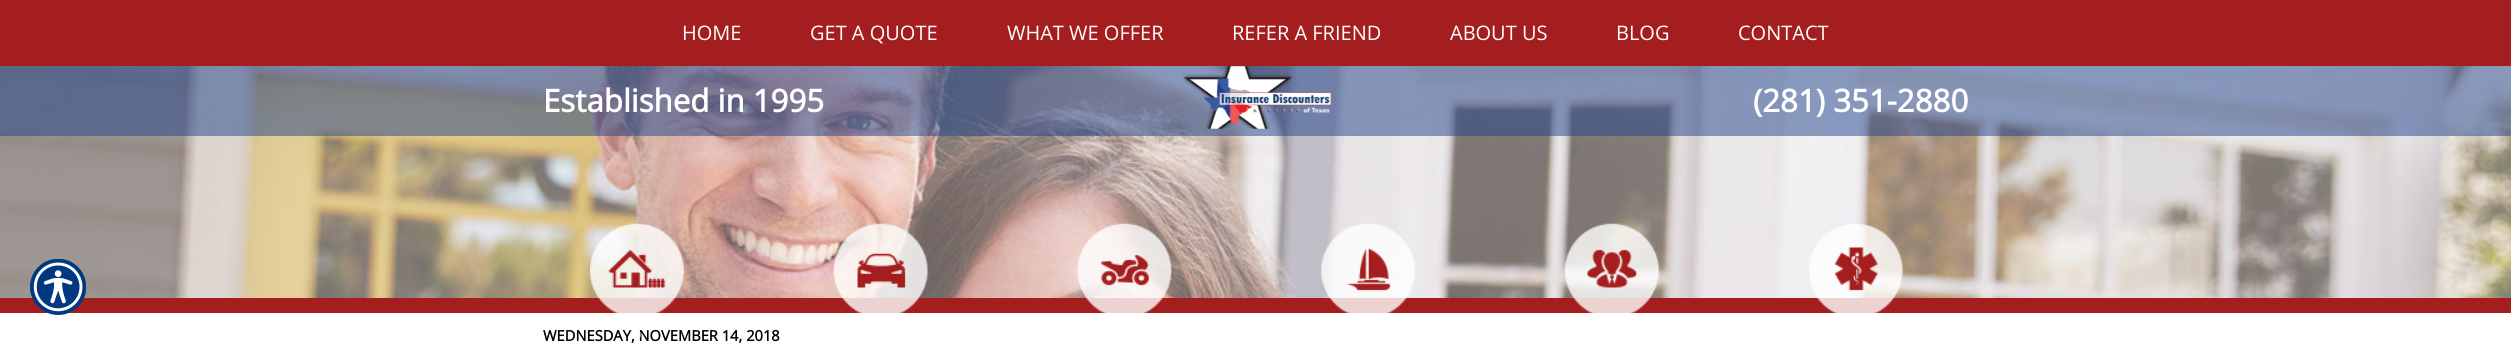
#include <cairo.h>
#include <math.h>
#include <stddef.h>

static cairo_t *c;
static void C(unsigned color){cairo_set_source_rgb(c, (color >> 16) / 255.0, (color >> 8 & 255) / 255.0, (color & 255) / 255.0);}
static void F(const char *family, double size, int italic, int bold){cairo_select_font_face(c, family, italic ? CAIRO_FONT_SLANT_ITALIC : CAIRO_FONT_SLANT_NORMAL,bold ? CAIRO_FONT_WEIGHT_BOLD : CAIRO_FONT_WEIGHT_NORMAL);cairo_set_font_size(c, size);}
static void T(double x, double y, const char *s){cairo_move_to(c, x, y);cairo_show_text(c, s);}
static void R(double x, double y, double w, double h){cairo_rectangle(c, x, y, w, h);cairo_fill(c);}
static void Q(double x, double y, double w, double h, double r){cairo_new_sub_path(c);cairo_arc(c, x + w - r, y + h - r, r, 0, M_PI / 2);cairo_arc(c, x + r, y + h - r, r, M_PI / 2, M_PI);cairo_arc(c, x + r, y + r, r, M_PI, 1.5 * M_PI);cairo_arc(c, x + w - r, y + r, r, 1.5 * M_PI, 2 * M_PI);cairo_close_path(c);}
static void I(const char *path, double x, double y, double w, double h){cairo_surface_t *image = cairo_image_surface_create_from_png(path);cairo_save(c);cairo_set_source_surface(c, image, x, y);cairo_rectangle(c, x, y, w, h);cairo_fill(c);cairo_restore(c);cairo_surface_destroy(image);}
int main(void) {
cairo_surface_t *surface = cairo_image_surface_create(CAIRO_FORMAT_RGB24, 2511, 351);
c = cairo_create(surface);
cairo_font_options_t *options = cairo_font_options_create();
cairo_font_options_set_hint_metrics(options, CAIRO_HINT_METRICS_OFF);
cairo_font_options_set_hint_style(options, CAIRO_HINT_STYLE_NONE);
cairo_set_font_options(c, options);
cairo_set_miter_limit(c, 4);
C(0xffffff);
cairo_paint(c);
I("3.png",0,66,2511,232);
C(0xa41e1f);
R(0,298,2511,15);
I("1.png",30,259,56,56);
cairo_set_source_rgba(c,0.129,0.263,0.545,0.5);
R(0,66,2511,70);
C(0xa41e1f);
R(0,0,2511,66);
F("Open Sans",20,0,0);
C(0xffffff);
T(682,40,"HOME");
T(810,40,"GET A QUOTE");
T(1007,40,"WHAT WE OFFER");
T(1232,40,"REFER A FRIEND");
T(1450,40,"ABOUT US");
T(1616,40,"BLOG");
T(1738,40,"CONTACT");
F("Open Sans",31.25,0,1);
T(543,112,"Established in 1995");
I("2.png",1182,66,150,63);
T(1753,112,"(281) 351-2880");
I("4.png",590,223,94,90);
F("Open Sans",14.7,0,1);
C(0x000000);
T(543,341,"WEDNESDAY, NOVEMBER 14, 2018");
cairo_set_source_rgba(c,1,1,1,0.33);
Q(633,330,8,9,4);
cairo_fill(c);
Q(633.5,330.5,7,8,3.5);
cairo_set_line_width(c,1);
cairo_stroke(c);
I("5.png",833,223,95,90);
I("6.png",1077,223,95,90);
I("7.png",1321,223,94,90);
I("8.png",1565,223,94,90);
I("9.png",1809,223,94,90);
cairo_surface_write_to_png(surface, "o.png");
cairo_font_options_destroy(options);
cairo_destroy(c);
cairo_surface_destroy(surface);
return 0;
}
